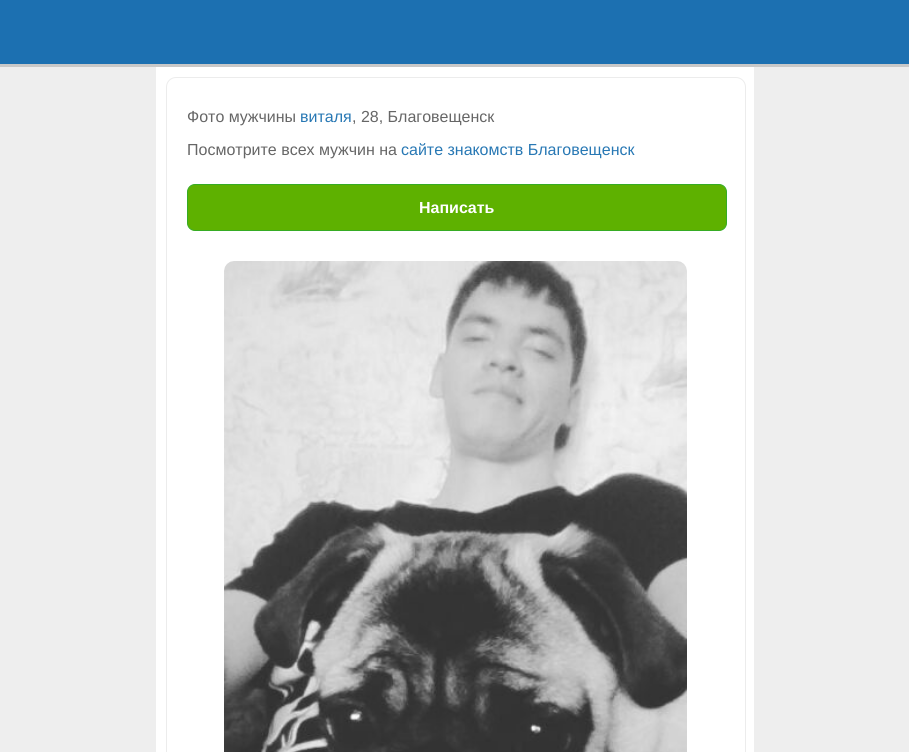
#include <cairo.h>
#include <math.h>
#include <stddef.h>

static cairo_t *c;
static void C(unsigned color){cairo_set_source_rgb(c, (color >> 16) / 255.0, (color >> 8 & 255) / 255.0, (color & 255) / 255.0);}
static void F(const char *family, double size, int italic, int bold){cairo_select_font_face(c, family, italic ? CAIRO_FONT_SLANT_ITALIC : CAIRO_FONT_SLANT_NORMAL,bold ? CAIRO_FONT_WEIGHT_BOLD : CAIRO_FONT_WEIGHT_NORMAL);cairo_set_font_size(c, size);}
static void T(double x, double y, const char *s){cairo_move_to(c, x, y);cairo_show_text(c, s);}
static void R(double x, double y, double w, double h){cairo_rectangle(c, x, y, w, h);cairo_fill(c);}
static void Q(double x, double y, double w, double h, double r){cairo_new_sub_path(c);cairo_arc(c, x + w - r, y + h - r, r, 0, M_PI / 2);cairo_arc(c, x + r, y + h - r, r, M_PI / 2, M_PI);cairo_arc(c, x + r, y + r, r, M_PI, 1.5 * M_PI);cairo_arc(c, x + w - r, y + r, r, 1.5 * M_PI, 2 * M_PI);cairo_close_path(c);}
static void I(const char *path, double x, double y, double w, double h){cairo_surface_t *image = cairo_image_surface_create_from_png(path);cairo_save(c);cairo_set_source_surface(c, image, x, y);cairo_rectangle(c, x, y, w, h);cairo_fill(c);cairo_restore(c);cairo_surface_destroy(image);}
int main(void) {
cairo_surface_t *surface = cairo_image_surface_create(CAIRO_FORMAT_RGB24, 909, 752);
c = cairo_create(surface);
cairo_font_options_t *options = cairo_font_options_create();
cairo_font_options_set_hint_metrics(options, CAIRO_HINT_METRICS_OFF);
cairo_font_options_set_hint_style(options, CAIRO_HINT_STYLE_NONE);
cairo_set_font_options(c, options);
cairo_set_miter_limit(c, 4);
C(0xeeeeee);
cairo_paint(c);
C(0x1c70b1);
R(0,0,909,64);
C(0xc8c8c8);
R(0,64,909,3);
C(0xffffff);
R(156,67,598,685);
Q(166.5,77.5,579,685,9.5);
C(0xececec);
cairo_set_line_width(c,1);
cairo_stroke(c);
F("Liberation Sans",16,0,0);
C(0x666666);
T(187,122,"Фото мужчины");
C(0x2878b4);
T(300,122,"виталя");
C(0x666666);
T(352,122,", 28, Благовещенск");
T(187,155,"Посмотрите всех мужчин на");
C(0x2878b4);
T(401,155,"сайте знакомств Благовещенск");
C(0x5eb100);
Q(187.5,184.5,539,46,7.5);
cairo_fill_preserve(c);
C(0x36ac24);
cairo_stroke(c);
F("Liberation Sans",16,0,1);
C(0xffffff);
T(419,213,"Написать");
I("1.png",224,261,463,491);
cairo_surface_write_to_png(surface, "o.png");
cairo_font_options_destroy(options);
cairo_destroy(c);
cairo_surface_destroy(surface);
return 0;
}
